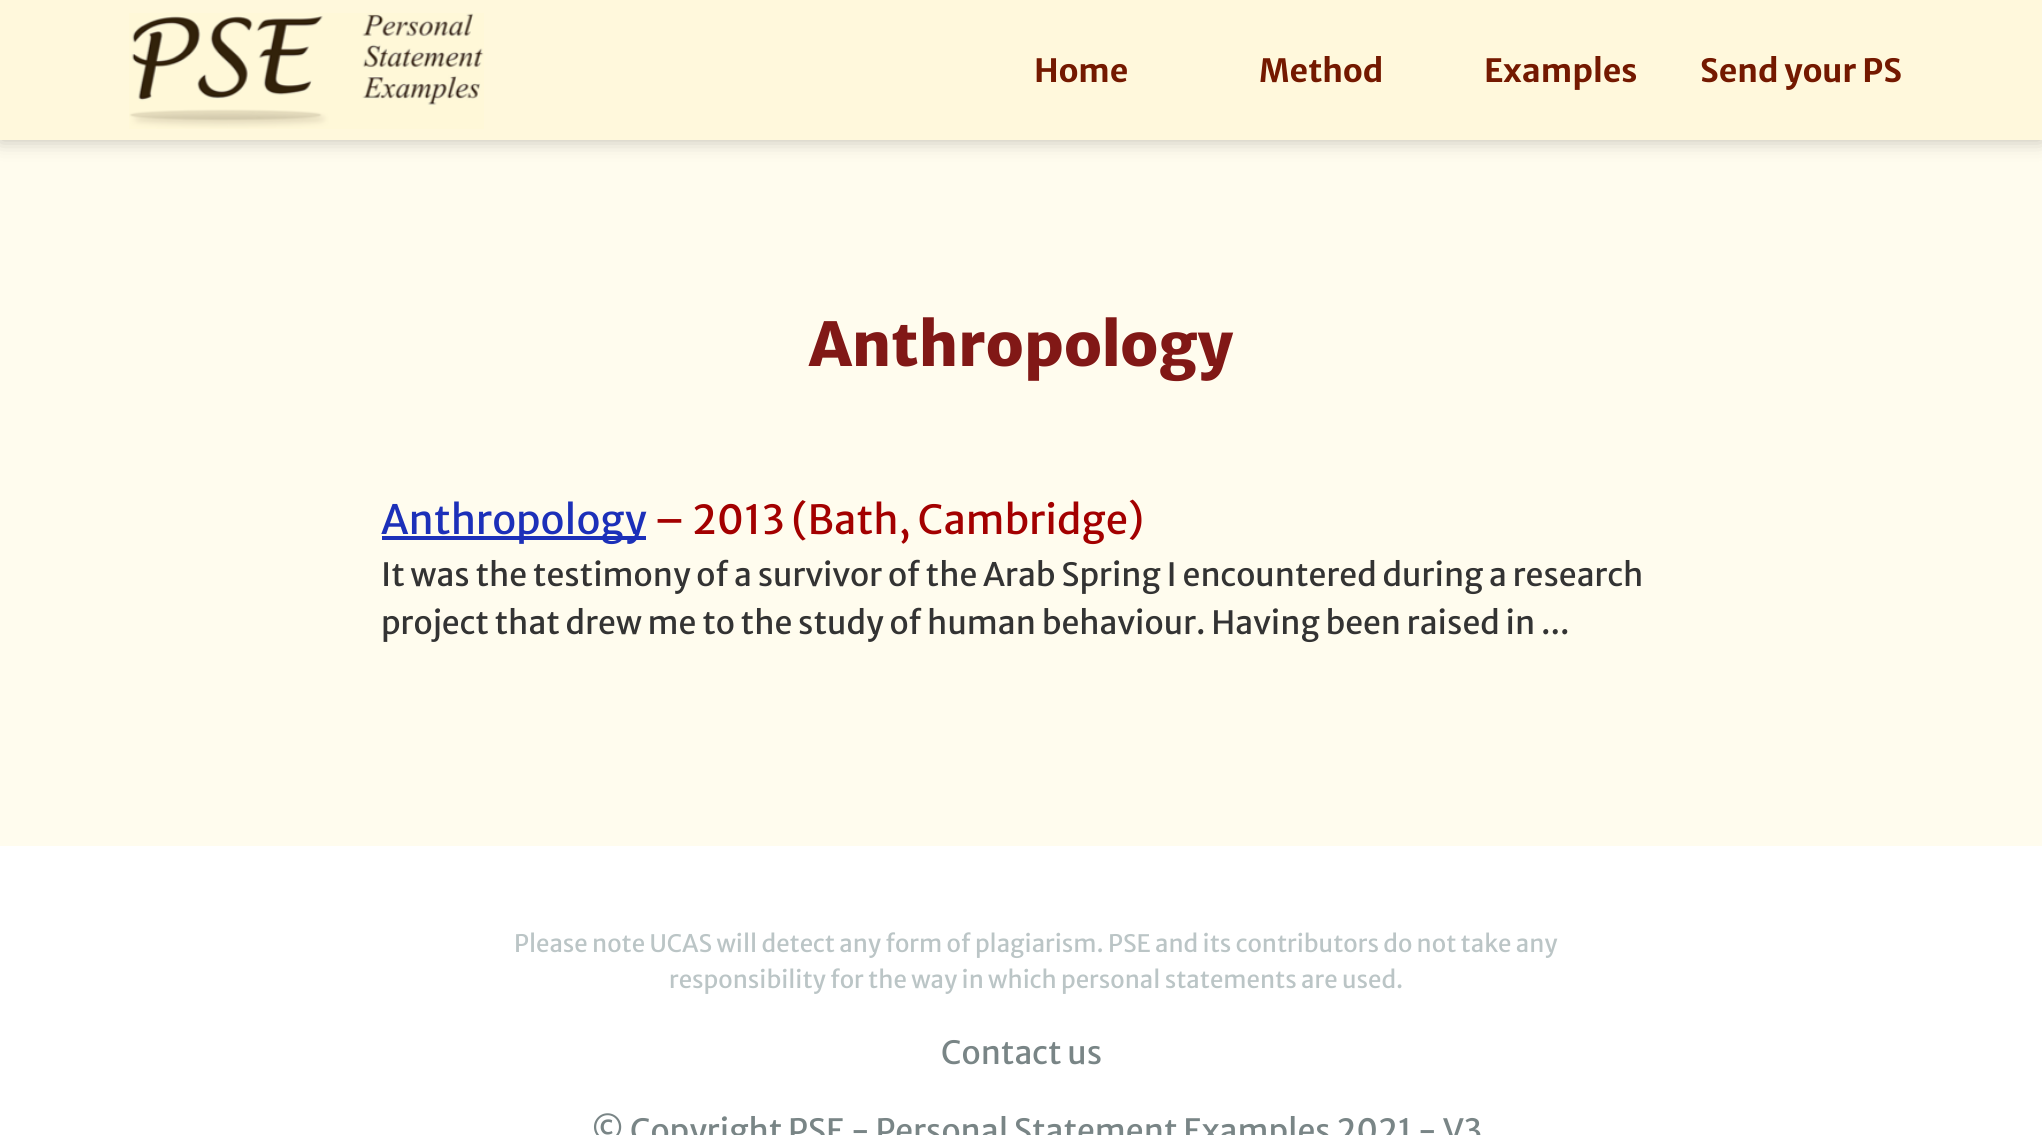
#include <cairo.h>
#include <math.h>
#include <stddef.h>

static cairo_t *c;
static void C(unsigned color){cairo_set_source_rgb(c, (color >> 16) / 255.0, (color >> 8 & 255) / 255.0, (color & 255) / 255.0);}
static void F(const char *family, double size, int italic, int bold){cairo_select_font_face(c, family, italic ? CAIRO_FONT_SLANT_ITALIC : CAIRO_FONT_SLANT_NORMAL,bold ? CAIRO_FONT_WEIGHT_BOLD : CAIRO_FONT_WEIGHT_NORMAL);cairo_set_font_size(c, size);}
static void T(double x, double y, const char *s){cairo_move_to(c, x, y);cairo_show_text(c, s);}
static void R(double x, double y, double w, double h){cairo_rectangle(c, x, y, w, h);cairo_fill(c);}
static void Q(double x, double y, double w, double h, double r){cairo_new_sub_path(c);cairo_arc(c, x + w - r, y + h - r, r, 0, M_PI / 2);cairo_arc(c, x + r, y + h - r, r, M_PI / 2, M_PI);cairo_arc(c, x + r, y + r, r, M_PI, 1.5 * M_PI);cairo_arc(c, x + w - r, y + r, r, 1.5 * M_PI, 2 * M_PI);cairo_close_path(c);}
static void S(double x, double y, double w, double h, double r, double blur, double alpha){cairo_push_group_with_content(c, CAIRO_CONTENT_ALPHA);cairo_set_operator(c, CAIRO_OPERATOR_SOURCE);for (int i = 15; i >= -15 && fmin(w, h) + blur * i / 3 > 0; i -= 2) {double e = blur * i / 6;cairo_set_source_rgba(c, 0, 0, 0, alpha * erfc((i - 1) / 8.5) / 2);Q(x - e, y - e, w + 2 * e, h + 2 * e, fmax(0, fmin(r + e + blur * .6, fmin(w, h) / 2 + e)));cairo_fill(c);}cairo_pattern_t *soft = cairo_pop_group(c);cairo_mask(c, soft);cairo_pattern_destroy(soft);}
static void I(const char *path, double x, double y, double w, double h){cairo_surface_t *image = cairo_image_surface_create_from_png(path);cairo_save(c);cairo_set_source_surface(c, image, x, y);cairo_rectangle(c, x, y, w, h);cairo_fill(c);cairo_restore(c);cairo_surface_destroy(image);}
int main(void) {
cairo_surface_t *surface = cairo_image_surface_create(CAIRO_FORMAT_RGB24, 2042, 1135);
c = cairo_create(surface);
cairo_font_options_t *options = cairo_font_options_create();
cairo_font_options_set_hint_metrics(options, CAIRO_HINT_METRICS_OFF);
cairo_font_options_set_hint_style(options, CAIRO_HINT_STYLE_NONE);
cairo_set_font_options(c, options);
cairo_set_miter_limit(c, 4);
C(0xffffff);
cairo_paint(c);
C(0xfffcee);
R(0,140,2042,706);
C(0x000000);
S(0,0,2042,140,0,10,.25);
C(0xfff8dc);
R(0,0,2042,140);
I("1.png",129,13,355,116);
F("Merriweather Sans",32,0,1);
C(0x741900);
T(1034,82,"Home");
T(1259,82,"Method");
T(1484,82,"Examples");
T(1700,82,"Send your PS");
F("Merriweather Sans ExtraBold",60,0,0);
C(0x811816);
T(809,366,"Anthropology");
C(0x1c30b9);
R(382,536,264,4);
F("Merriweather Sans",40,0,0);
T(381,534,"Anthropology");
C(0xa30000);
T(654,534,"– 2013 (Bath, Cambridge)");
F("Merriweather Sans",32,0,0);
C(0x333333);
T(381,586,"It was the testimony of a survivor of the Arab Spring I encountered during a research");
T(381,634,"project that drew me to the study of human behaviour. Having been raised in ...");
F("Merriweather Sans",24,0,0);
C(0xbbc5c6);
T(514,952,"Please note UCAS will detect any form of plagiarism. PSE and its contributors do not take any");
T(669,988,"responsibility for the way in which personal statements are used.");
F("Merriweather Sans",32,0,0);
C(0x798586);
T(941,1064,"Contact us");
T(591,1142,"© Copyright PSE - Personal Statement Examples 2021 - V3");
cairo_surface_write_to_png(surface, "o.png");
cairo_font_options_destroy(options);
cairo_destroy(c);
cairo_surface_destroy(surface);
return 0;
}
